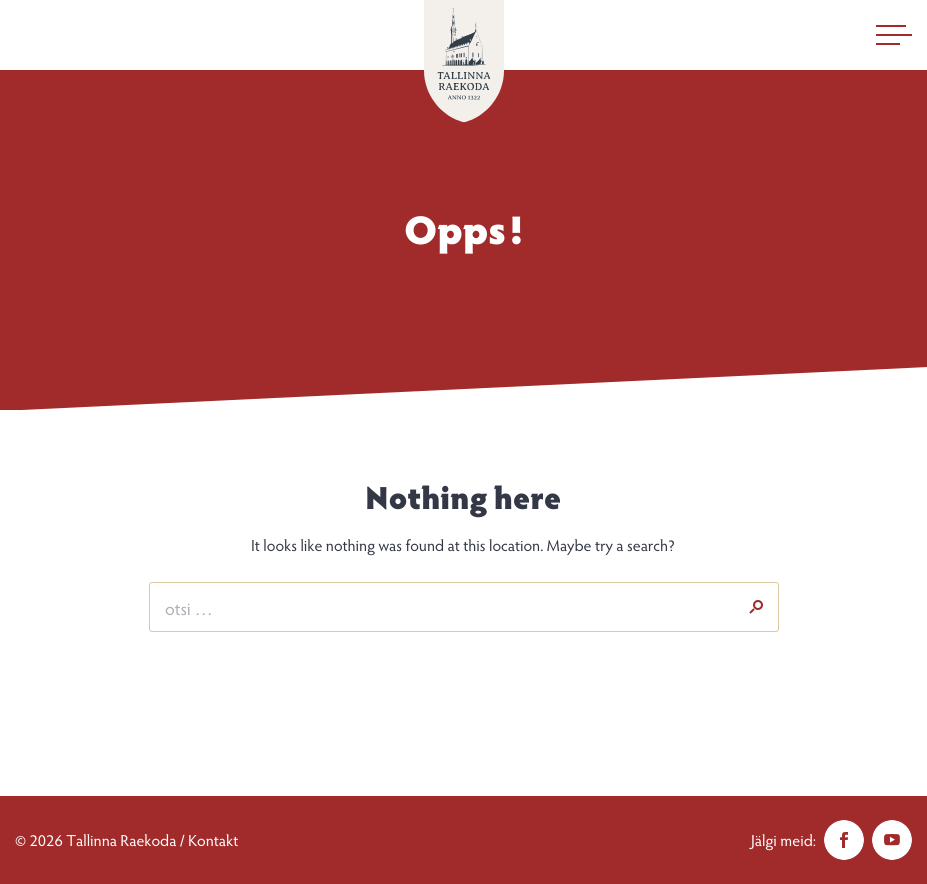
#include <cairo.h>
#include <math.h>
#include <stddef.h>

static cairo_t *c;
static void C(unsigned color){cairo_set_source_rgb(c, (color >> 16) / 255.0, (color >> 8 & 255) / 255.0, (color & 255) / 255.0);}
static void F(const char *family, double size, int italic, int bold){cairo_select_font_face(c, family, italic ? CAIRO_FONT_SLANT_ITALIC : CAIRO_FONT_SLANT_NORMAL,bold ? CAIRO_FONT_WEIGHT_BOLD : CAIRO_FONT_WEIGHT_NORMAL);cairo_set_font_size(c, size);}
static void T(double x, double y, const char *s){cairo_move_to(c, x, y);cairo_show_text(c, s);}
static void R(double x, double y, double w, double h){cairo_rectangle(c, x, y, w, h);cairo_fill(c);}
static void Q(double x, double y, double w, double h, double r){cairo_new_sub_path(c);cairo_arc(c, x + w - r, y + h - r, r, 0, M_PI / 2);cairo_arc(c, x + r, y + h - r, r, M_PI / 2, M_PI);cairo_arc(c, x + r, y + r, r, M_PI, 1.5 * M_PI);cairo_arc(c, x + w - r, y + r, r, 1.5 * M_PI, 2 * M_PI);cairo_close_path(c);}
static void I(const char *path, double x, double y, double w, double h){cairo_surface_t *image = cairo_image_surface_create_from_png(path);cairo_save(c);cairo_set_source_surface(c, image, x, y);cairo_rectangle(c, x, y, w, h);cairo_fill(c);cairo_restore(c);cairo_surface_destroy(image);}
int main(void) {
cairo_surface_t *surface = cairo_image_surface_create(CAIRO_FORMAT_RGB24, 927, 884);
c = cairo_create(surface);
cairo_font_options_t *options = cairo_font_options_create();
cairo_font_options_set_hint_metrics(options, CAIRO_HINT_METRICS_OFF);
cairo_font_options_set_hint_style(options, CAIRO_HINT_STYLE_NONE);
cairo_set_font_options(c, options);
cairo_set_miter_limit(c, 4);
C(0xffffff);
cairo_paint(c);
C(0xa12a2a);
R(0,70,927,340);
I("1.png",424,0,80,123);
R(876,34,36,2);
R(876,25,30,2);
R(876,43,24,2);
F("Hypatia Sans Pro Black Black",40,0,0);
C(0xffffff);
T(404,244,"Opps!");
cairo_new_path(c);
cairo_move_to(c,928,367);
cairo_line_to(c,0,411);
cairo_line_to(c,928,411);
cairo_close_path(c);
cairo_fill(c);
F("Hypatia Sans Pro Black Black",32,0,0);
C(0x343746);
T(365,509,"Nothing here");
F("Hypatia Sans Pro",16,0,0);
T(251,551,"It looks like nothing was found at this location. Maybe try a search?");
Q(149.5,582.5,629,49,2.5);
C(0xddc9a2);
cairo_set_line_width(c,1);
cairo_stroke(c);
F("Hypatia Sans Pro",18,0,0);
C(0xaeafb5);
T(165,615,"otsi …");
I("2.png",749,600,14,14);
C(0xa12a2a);
R(0,796,927,88);
F("Hypatia Sans Pro",16,0,0);
C(0xffffff);
T(15,846,"© 2026 Tallinna Raekoda / Kontakt");
T(751,846,"Jälgi meid:");
I("3.png",824,820,40,40);
I("4.png",872,820,40,40);
cairo_surface_write_to_png(surface, "o.png");
cairo_font_options_destroy(options);
cairo_destroy(c);
cairo_surface_destroy(surface);
return 0;
}
